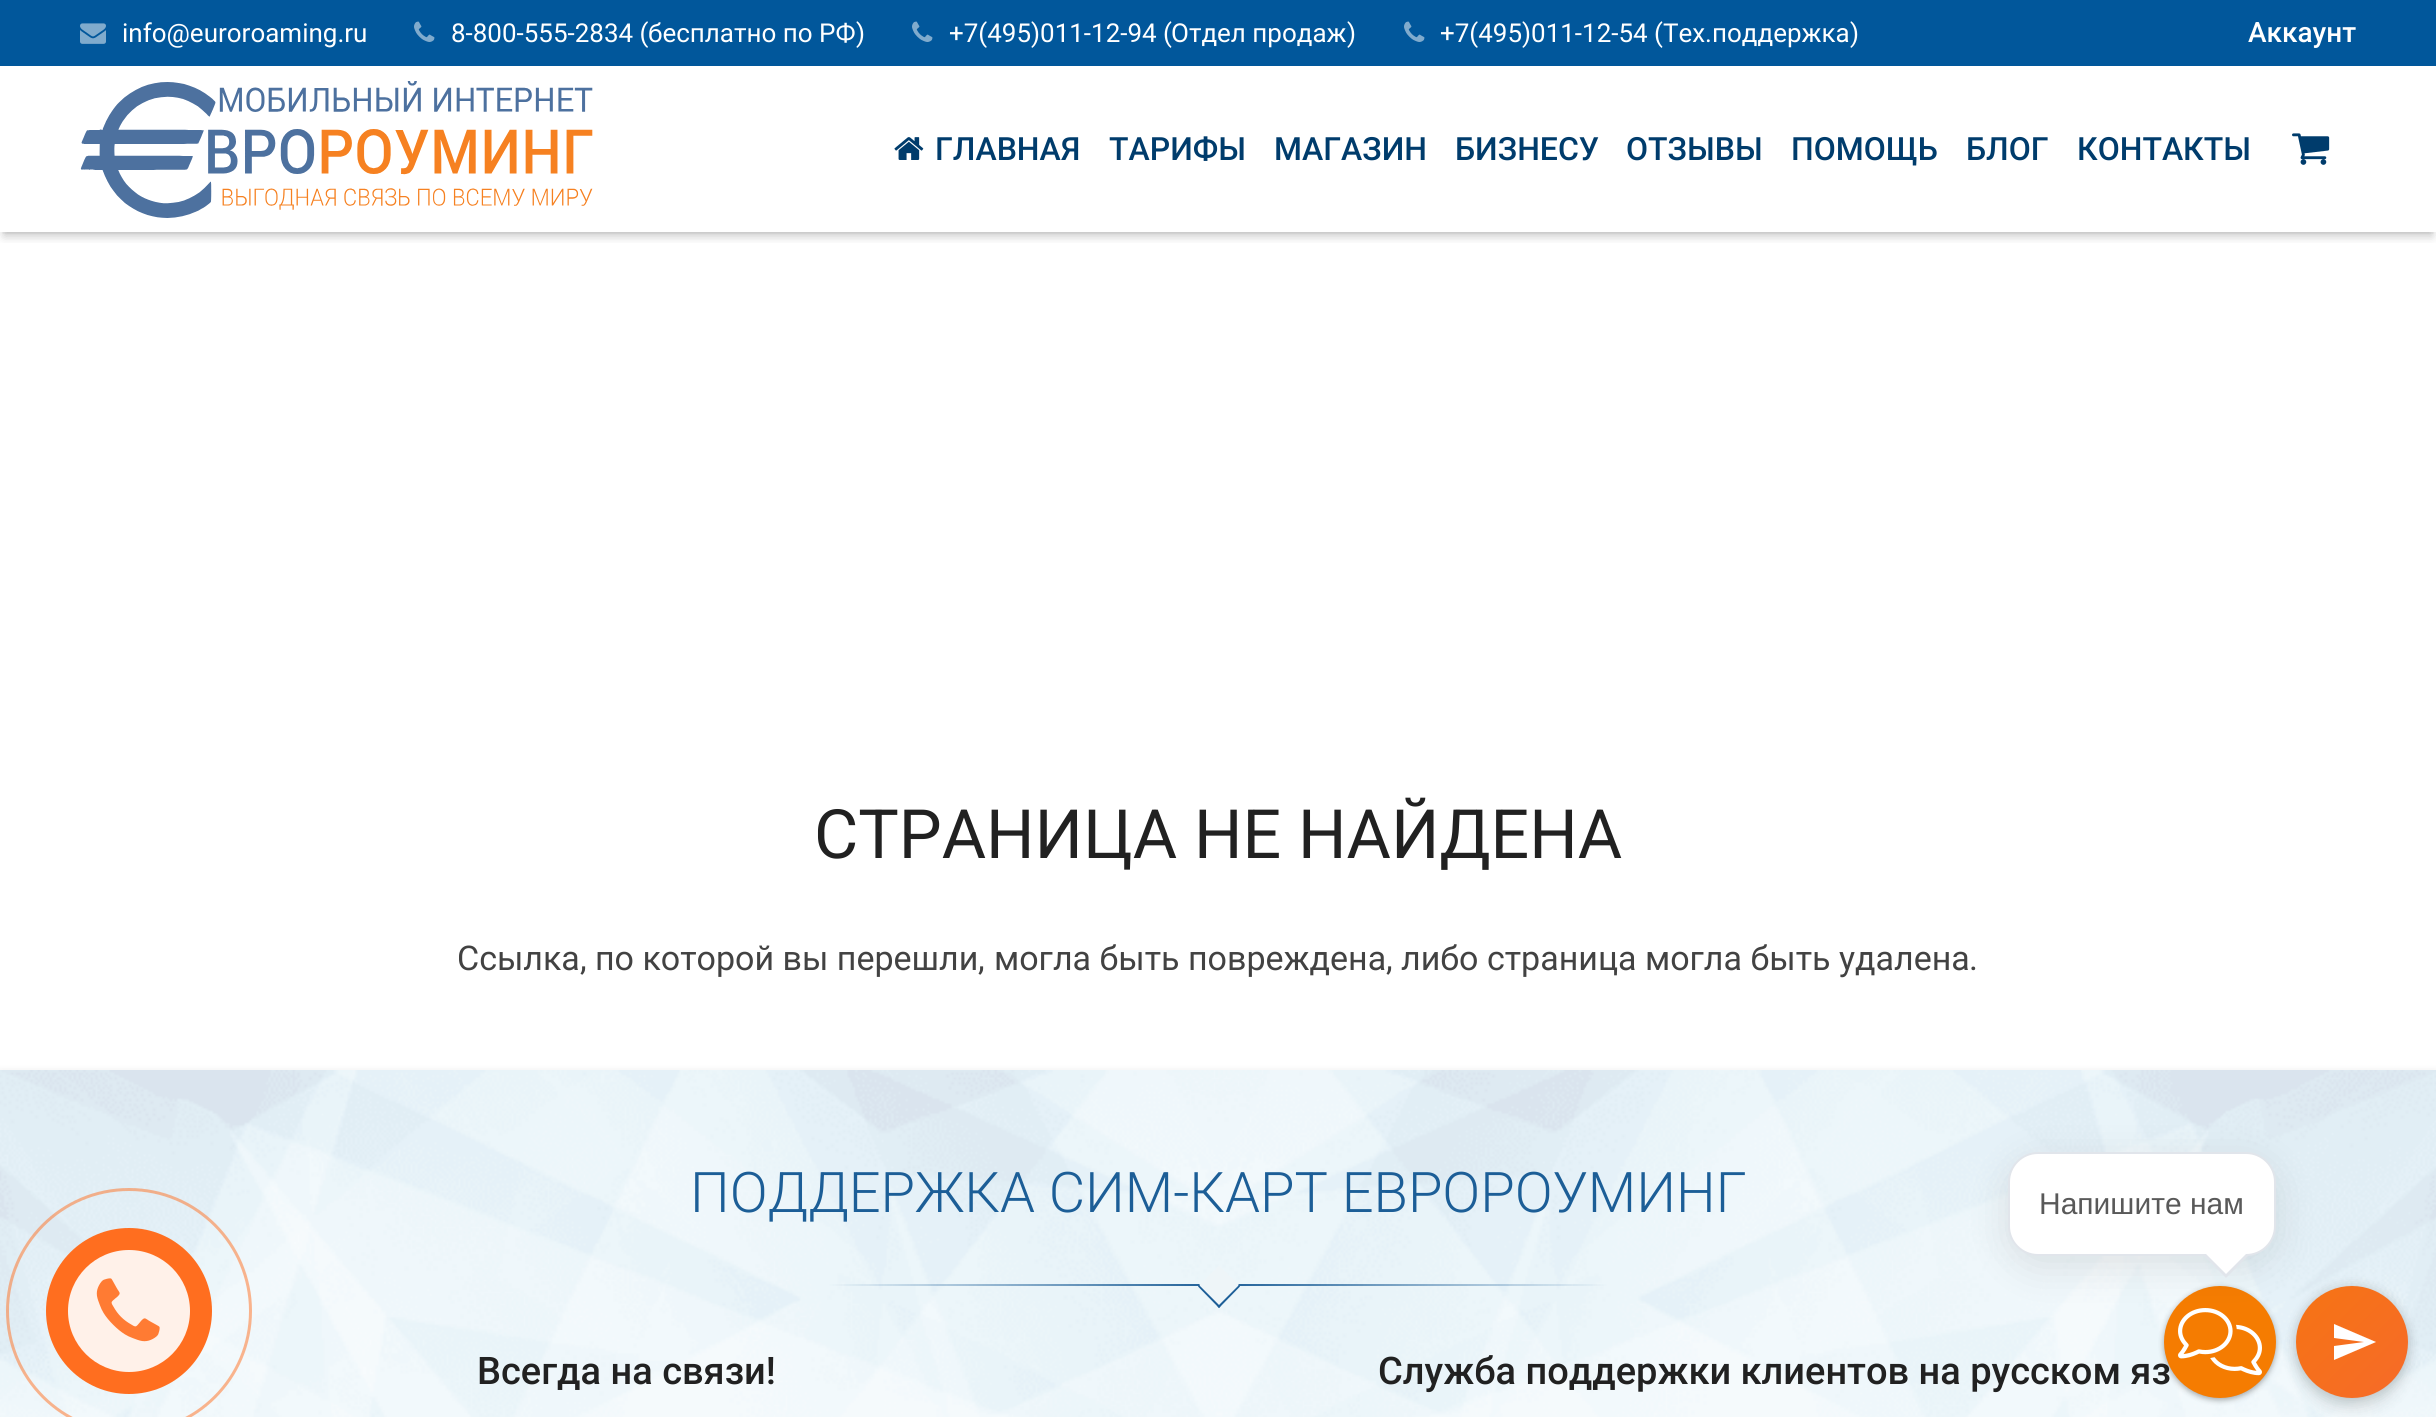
#include <cairo.h>
#include <math.h>
#include <stddef.h>

static cairo_t *c;
static void C(unsigned color){cairo_set_source_rgb(c, (color >> 16) / 255.0, (color >> 8 & 255) / 255.0, (color & 255) / 255.0);}
static void F(const char *family, double size, int italic, int bold){cairo_select_font_face(c, family, italic ? CAIRO_FONT_SLANT_ITALIC : CAIRO_FONT_SLANT_NORMAL,bold ? CAIRO_FONT_WEIGHT_BOLD : CAIRO_FONT_WEIGHT_NORMAL);cairo_set_font_size(c, size);}
static void T(double x, double y, const char *s){cairo_move_to(c, x, y);cairo_show_text(c, s);}
static void R(double x, double y, double w, double h){cairo_rectangle(c, x, y, w, h);cairo_fill(c);}
static void Q(double x, double y, double w, double h, double r){cairo_new_sub_path(c);cairo_arc(c, x + w - r, y + h - r, r, 0, M_PI / 2);cairo_arc(c, x + r, y + h - r, r, M_PI / 2, M_PI);cairo_arc(c, x + r, y + r, r, M_PI, 1.5 * M_PI);cairo_arc(c, x + w - r, y + r, r, 1.5 * M_PI, 2 * M_PI);cairo_close_path(c);}
static void S(double x, double y, double w, double h, double r, double blur, double alpha){cairo_push_group_with_content(c, CAIRO_CONTENT_ALPHA);cairo_set_operator(c, CAIRO_OPERATOR_SOURCE);for (int i = 15; i >= -15 && fmin(w, h) + blur * i / 3 > 0; i -= 2) {double e = blur * i / 6;cairo_set_source_rgba(c, 0, 0, 0, alpha * erfc((i - 1) / 8.5) / 2);Q(x - e, y - e, w + 2 * e, h + 2 * e, fmax(0, fmin(r + e + blur * .6, fmin(w, h) / 2 + e)));cairo_fill(c);}cairo_pattern_t *soft = cairo_pop_group(c);cairo_mask(c, soft);cairo_pattern_destroy(soft);}
static void I(const char *path, double x, double y, double w, double h){cairo_surface_t *image = cairo_image_surface_create_from_png(path);cairo_save(c);cairo_set_source_surface(c, image, x, y);cairo_rectangle(c, x, y, w, h);cairo_fill(c);cairo_restore(c);cairo_surface_destroy(image);}
int main(void) {
cairo_surface_t *surface = cairo_image_surface_create(CAIRO_FORMAT_RGB24, 2436, 1417);
c = cairo_create(surface);
cairo_font_options_t *options = cairo_font_options_create();
cairo_font_options_set_hint_metrics(options, CAIRO_HINT_METRICS_OFF);
cairo_font_options_set_hint_style(options, CAIRO_HINT_STYLE_NONE);
cairo_set_font_options(c, options);
cairo_set_miter_limit(c, 4);
cairo_pattern_t *gradient;
C(0xffffff);
cairo_paint(c);
C(0x01579b);
R(0,0,2436,66);
I("1.png",80,23,26,21);
F("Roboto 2",26,0,0);
C(0xffffff);
T(122,42,"info@euroroaming.ru");
I("2.png",414,21,21,21);
T(451,42,"8-800-555-2834 (");
F("Roboto",26,0,0);
T(648,42,"бесплатно по РФ");
F("Roboto 2",26,0,0);
T(856,42,")");
I("2.png",912,21,21,21);
T(949,42,"+7(495)011-12-94 (");
F("Roboto",26,0,0);
T(1171,42,"Отдел продаж");
F("Roboto 2",26,0,0);
T(1347,42,")");
I("2.png",1404,21,21,21);
T(1440,42,"+7(495)011-12-54 (");
F("Roboto",26,0,0);
T(1663,42,"Тех");
F("Roboto 2",26,0,0);
T(1705,42,".");
F("Roboto",26,0,0);
T(1712,42,"поддержка");
F("Roboto 2",26,0,0);
T(1850,42,")");
F("Roboto Medium",28,0,0);
T(2248,42,"Аккаунт");
cairo_save(c);
cairo_rectangle(c,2,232,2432,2);
cairo_clip(c);
C(0x000000);
S(2,72,2432,162,0,1,.05);
cairo_restore(c);
cairo_save(c);
cairo_rectangle(c,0,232,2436,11);
cairo_clip(c);
C(0x000000);
S(4,78,2428,158,0,5,.22);
cairo_restore(c);
I("3.png",80,81,513,137);
I("4.png",894,137,30,23);
F("Roboto Medium",32,0,0);
C(0x003c6c);
T(935,160,"ГЛАВНАЯ");
T(1109,160,"ТАРИФЫ");
T(1274,160,"МАГАЗИН");
T(1455,160,"БИЗНЕСУ");
T(1626,160,"ОТЗЫВЫ");
T(1791,160,"ПОМОЩЬ");
T(1966,160,"БЛОГ");
T(2077,160,"КОНТАКТЫ");
I("5.png",2292,133,38,32);
F("Roboto",68,0,0);
C(0x212121);
T(814,858,"СТРАНИЦА НЕ НАЙДЕНА");
F("Roboto",34,0,0);
C(0x424242);
T(457,970,"Ссылка");
F("Roboto 2",34,0,0);
T(580,970,",");
F("Roboto",34,0,0);
T(595,970,"по которой вы перешли");
F("Roboto 2",34,0,0);
T(978,970,",");
F("Roboto",34,0,0);
T(994,970,"могла быть повреждена");
F("Roboto 2",34,0,0);
T(1386,970,",");
F("Roboto",34,0,0);
T(1401,970,"либо страница могла быть удалена");
F("Roboto 2",34,0,0);
T(1969,970,".");
C(0x000000);
S(0,1074,2436,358,0,5,.15);
C(0xffffff);
R(0,1070,2436,347);
I("7.png",0,1070,2436,347);
cairo_arc(c,129,1311,121.5,0,2 * M_PI);
cairo_set_source_rgba(c,1,0.431,0.122,0.5);
cairo_set_line_width(c,3);
cairo_stroke(c);
C(0xff6e1f);
cairo_arc(c,129,1311,83,0,2 * M_PI);
cairo_fill(c);
C(0xfff1e9);
cairo_arc(c,129,1311,61,0,2 * M_PI);
cairo_fill(c);
I("6.png",96,1278,64,64);
F("Roboto Light",56,0,0);
C(0x1c5e97);
T(690,1212,"ПОДДЕРЖКА СИМ-КАРТ ЕВРОРОУМИНГ");
gradient = cairo_pattern_create_linear(828,1285,1608,1285);
cairo_pattern_add_color_stop_rgba(gradient,0,0.11,0.369,0.592,0);
cairo_pattern_add_color_stop_rgba(gradient,.5,0.11,0.369,0.592,1);
cairo_pattern_add_color_stop_rgba(gradient,1,0.11,0.369,0.592,0);
cairo_set_source(c,gradient);
cairo_pattern_destroy(gradient);
R(828,1284,780,2);
C(0xeef5f8);
cairo_new_path(c);
cairo_move_to(c,1219,1265.5);
cairo_line_to(c,1239,1285);
cairo_line_to(c,1219,1305);
cairo_line_to(c,1199,1285);
cairo_close_path(c);
cairo_fill(c);
C(0x1c5e97);
cairo_new_path(c);
cairo_move_to(c,1239,1285);
cairo_line_to(c,1240,1286.5);
cairo_line_to(c,1219,1308);
cairo_line_to(c,1217.5,1306.5);
cairo_close_path(c);
cairo_fill(c);
cairo_new_path(c);
cairo_move_to(c,1199,1285);
cairo_line_to(c,1220.5,1306.5);
cairo_line_to(c,1219,1308);
cairo_line_to(c,1198,1286.5);
cairo_close_path(c);
cairo_fill(c);
F("Roboto Medium",38,0,0);
C(0x212121);
T(477,1384,"Всегда на связи!");
T(1378,1384,"Служба поддержки клиентов на русском яз");
C(0x000000);
S(2164,1288,112,112,56,3,.33);
S(2296,1298,112,112,56,7,.1);
C(0xf57c01);
cairo_arc(c,2220,1342,56,0,2 * M_PI);
cairo_fill(c);
I("8.png",2178,1308,84,68);
C(0x000000);
S(2296,1286,112,112,56,6,.16);
gradient = cairo_pattern_create_linear(2194,1184,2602,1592);
cairo_pattern_add_color_stop_rgba(gradient,0,0.961,0.486,0,1);
cairo_pattern_add_color_stop_rgba(gradient,.6,0.965,0.408,0.184,1);
cairo_pattern_add_color_stop_rgba(gradient,1,0.988,0.259,0.459,1);
cairo_set_source(c,gradient);
cairo_pattern_destroy(gradient);
cairo_arc(c,2352,1342,56,0,2 * M_PI);
cairo_fill(c);
C(0xffffff);
cairo_new_path(c);
cairo_move_to(c,2334,1360);
cairo_line_to(c,2376,1342);
cairo_line_to(c,2334,1324);
cairo_line_to(c,2334,1338);
cairo_line_to(c,2364,1342);
cairo_line_to(c,2334,1346);
cairo_close_path(c);
cairo_fill(c);
C(0x000000);
S(2008,1162,268,104,30,20,.1);
C(0xffffff);
Q(2009,1153,266,102,29);
cairo_fill_preserve(c);
C(0xe1e5eb);
cairo_set_line_width(c,2);
cairo_stroke(c);
F("Liberation Sans",30,0,0);
C(0x595959);
T(2039,1214,"Напишите нам");
C(0xe1e5eb);
cairo_new_path(c);
cairo_move_to(c,2202,1254);
cairo_line_to(c,2250,1254);
cairo_line_to(c,2226,1278);
cairo_close_path(c);
cairo_fill(c);
C(0xffffff);
cairo_new_path(c);
cairo_move_to(c,2206,1254);
cairo_line_to(c,2246,1254);
cairo_line_to(c,2226,1274);
cairo_close_path(c);
cairo_fill(c);
cairo_surface_write_to_png(surface, "o.png");
cairo_font_options_destroy(options);
cairo_destroy(c);
cairo_surface_destroy(surface);
return 0;
}
